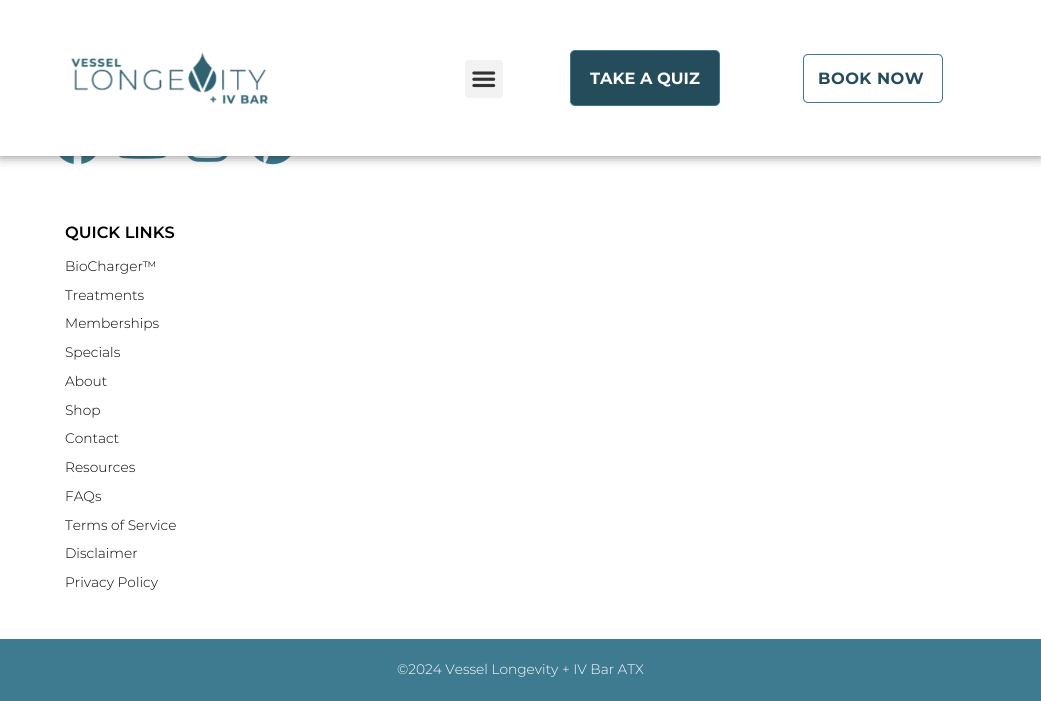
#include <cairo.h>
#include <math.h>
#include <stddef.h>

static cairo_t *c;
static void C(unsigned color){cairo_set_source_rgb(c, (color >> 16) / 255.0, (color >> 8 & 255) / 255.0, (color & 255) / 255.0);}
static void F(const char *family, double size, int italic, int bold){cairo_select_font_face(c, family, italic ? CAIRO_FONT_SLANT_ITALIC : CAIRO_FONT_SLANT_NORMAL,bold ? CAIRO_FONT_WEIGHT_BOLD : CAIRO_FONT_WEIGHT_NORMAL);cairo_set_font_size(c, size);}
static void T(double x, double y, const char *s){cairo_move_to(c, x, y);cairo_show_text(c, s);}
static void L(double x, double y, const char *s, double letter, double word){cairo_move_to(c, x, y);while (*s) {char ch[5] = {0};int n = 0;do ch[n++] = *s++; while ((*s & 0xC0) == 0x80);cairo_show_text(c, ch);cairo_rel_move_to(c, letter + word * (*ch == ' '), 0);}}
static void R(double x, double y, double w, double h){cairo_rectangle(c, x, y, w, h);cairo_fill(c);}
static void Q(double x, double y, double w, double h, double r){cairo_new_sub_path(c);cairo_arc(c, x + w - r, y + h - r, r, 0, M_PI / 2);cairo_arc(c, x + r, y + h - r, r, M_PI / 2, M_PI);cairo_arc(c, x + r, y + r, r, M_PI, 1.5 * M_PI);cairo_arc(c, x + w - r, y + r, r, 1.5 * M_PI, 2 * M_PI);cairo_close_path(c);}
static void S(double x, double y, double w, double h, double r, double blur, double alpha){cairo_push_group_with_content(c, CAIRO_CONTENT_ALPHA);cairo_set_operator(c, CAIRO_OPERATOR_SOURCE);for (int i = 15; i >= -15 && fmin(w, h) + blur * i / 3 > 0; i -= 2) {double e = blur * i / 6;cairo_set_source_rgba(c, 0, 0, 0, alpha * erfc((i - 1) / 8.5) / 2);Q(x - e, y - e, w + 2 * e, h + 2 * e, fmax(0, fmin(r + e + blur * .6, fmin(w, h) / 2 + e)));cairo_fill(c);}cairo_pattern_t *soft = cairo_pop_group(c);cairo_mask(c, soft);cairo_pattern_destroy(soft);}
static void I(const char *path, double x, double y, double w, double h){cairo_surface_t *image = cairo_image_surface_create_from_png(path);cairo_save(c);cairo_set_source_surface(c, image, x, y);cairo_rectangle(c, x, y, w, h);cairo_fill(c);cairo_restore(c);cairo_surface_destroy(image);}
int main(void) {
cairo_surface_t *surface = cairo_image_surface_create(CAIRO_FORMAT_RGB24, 1041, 701);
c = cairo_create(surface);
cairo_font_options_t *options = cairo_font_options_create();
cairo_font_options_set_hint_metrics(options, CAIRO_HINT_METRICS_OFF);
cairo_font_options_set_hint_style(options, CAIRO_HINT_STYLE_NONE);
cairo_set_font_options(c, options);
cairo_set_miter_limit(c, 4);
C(0xffffff);
cairo_paint(c);
I("3.png",59,156,37,8);
I("4.png",119,156,48,3);
I("5.png",187,156,41,6);
I("6.png",254,156,37,9);
C(0x000000);
S(0,0,1041,156,0,6,.5);
C(0xffffff);
R(0,0,1041,156);
I("1.png",71,52,197,52);
C(0xf2f2f2);
Q(465,60,38,38,4);
cairo_fill(c);
I("2.png",472,71,24,17);
C(0x244c5b);
Q(570.5,50.5,149,55,4.5);
cairo_fill_preserve(c);
C(0x3e7b90);
cairo_set_line_width(c,1);
cairo_stroke(c);
F("Montserrat",16.25,0,1);
C(0xffffff);
T(590,84,"TAKE A QUIZ");
Q(803.5,54.5,139,48,4.5);
C(0x3e7b90);
cairo_stroke(c);
C(0x244c5b);
L(818,84,"BOOK NOW",.5,0);
F("Montserrat SemiBold",16.25,0,0);
C(0x000000);
T(65,238,"QUICK LINKS");
F("Montserrat Light",13.75,0,0);
T(65,271,"BioCharger™");
T(65,300,"Treatments");
T(65,328,"Memberships");
T(65,357,"Specials");
T(65,386,"About");
T(65,415,"Shop");
T(65,443,"Contact");
T(65,472,"Resources");
T(65,501,"FAQs");
T(65,530,"Terms of Service");
T(65,558,"Disclaimer");
T(65,587,"Privacy Policy");
C(0x3e7b90);
R(0,639,1041,62);
C(0xffffff);
T(397,674,"©2024 Vessel Longevity + IV Bar ATX");
cairo_surface_write_to_png(surface, "o.png");
cairo_font_options_destroy(options);
cairo_destroy(c);
cairo_surface_destroy(surface);
return 0;
}
